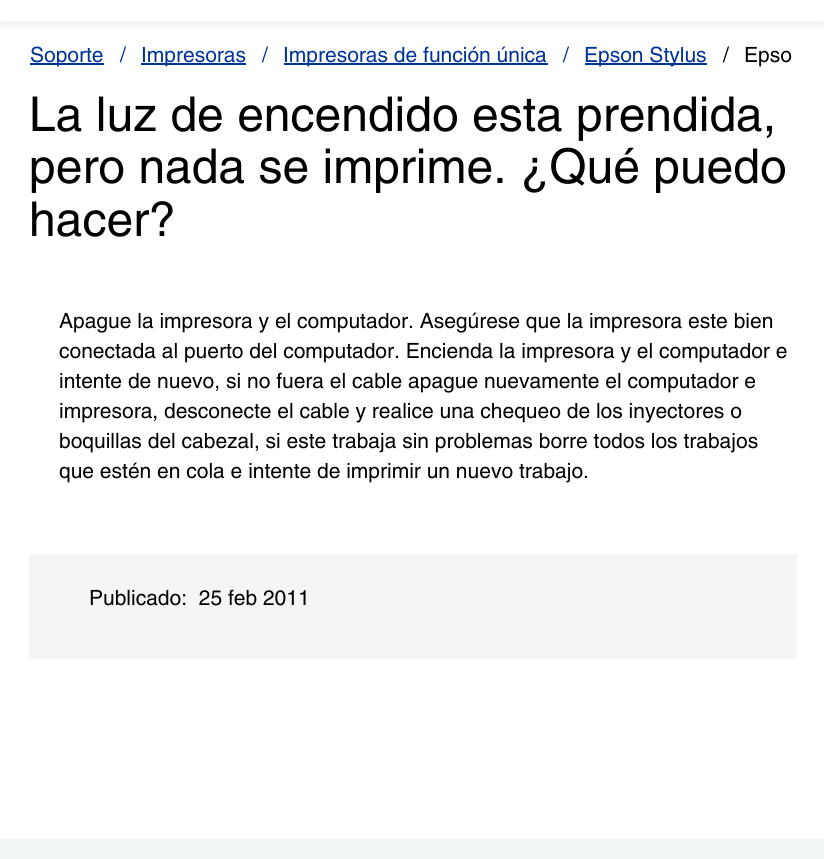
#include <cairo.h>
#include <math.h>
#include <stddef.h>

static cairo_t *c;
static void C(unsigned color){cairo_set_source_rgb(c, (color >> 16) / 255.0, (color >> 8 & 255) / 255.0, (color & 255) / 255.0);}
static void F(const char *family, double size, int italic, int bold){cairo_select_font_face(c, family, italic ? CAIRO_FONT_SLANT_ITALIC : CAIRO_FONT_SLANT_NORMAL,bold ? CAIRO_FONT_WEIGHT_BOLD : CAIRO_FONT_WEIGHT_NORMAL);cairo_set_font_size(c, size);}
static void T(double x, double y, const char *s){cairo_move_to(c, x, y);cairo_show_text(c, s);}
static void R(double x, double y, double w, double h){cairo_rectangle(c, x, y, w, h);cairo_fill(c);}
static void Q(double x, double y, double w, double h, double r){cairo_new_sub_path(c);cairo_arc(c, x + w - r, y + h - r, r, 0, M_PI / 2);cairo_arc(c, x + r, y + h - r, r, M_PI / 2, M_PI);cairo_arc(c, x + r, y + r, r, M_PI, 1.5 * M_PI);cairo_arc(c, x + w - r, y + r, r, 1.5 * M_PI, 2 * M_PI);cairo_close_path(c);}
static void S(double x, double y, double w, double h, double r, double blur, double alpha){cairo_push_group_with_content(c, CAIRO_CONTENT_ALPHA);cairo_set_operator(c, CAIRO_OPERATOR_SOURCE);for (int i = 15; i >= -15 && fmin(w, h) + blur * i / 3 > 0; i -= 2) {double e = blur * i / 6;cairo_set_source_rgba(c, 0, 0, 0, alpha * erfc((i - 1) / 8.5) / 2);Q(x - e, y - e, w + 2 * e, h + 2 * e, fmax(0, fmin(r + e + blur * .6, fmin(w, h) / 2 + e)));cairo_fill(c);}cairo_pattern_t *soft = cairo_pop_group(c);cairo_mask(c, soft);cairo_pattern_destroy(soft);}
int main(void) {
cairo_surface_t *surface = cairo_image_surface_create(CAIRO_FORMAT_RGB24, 824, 859);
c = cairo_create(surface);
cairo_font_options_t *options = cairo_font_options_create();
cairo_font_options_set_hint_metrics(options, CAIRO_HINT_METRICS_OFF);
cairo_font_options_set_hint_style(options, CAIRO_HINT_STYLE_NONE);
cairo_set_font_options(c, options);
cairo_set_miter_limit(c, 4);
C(0xffffff);
cairo_paint(c);
cairo_save(c);
cairo_rectangle(c,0,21,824,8);
cairo_clip(c);
C(0x000000);
S(0,-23,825,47,0,7.5,.08);
cairo_restore(c);
C(0x003399);
R(30,63,74,2);
F("Helvetica",21,0,0);
T(30,62,"Soporte");
T(120,62,"/");
R(141,63,105,2);
T(141,62,"Impresoras");
T(262,62,"/");
R(284,63,264,2);
T(283,62,"Impresoras de función única");
T(563,62,"/");
R(585,63,122,2);
T(584,62,"Epson Stylus");
C(0x000000);
T(723,62,"/");
T(744,62,"Epso");
F("Helvetica",48,0,0);
T(29,131,"La luz de encendido esta prendida,");
T(29,183,"pero nada se imprime. ¿Qué puedo");
T(29,236,"hacer?");
F("Helvetica",21,0,0);
T(59,328,"Apague la impresora y el computador. Asegúrese que la impresora este bien");
T(59,358,"conectada al puerto del computador. Encienda la impresora y el computador e");
T(59,388,"intente de nuevo, si no fuera el cable apague nuevamente el computador e");
T(59,418,"impresora, desconecte el cable y realice una chequeo de los inyectores o");
T(59,448,"boquillas del cabezal, si este trabaja sin problemas borre todos los trabajos");
T(59,478,"que estén en cola e intente de imprimir un nuevo trabajo.");
C(0xf4f5f7);
R(29,554,768,105);
C(0x000000);
T(89,605,"Publicado:  25 feb 2011");
C(0xf2f6f6);
R(0,839,824,20);
cairo_surface_write_to_png(surface, "o.png");
cairo_font_options_destroy(options);
cairo_destroy(c);
cairo_surface_destroy(surface);
return 0;
}
